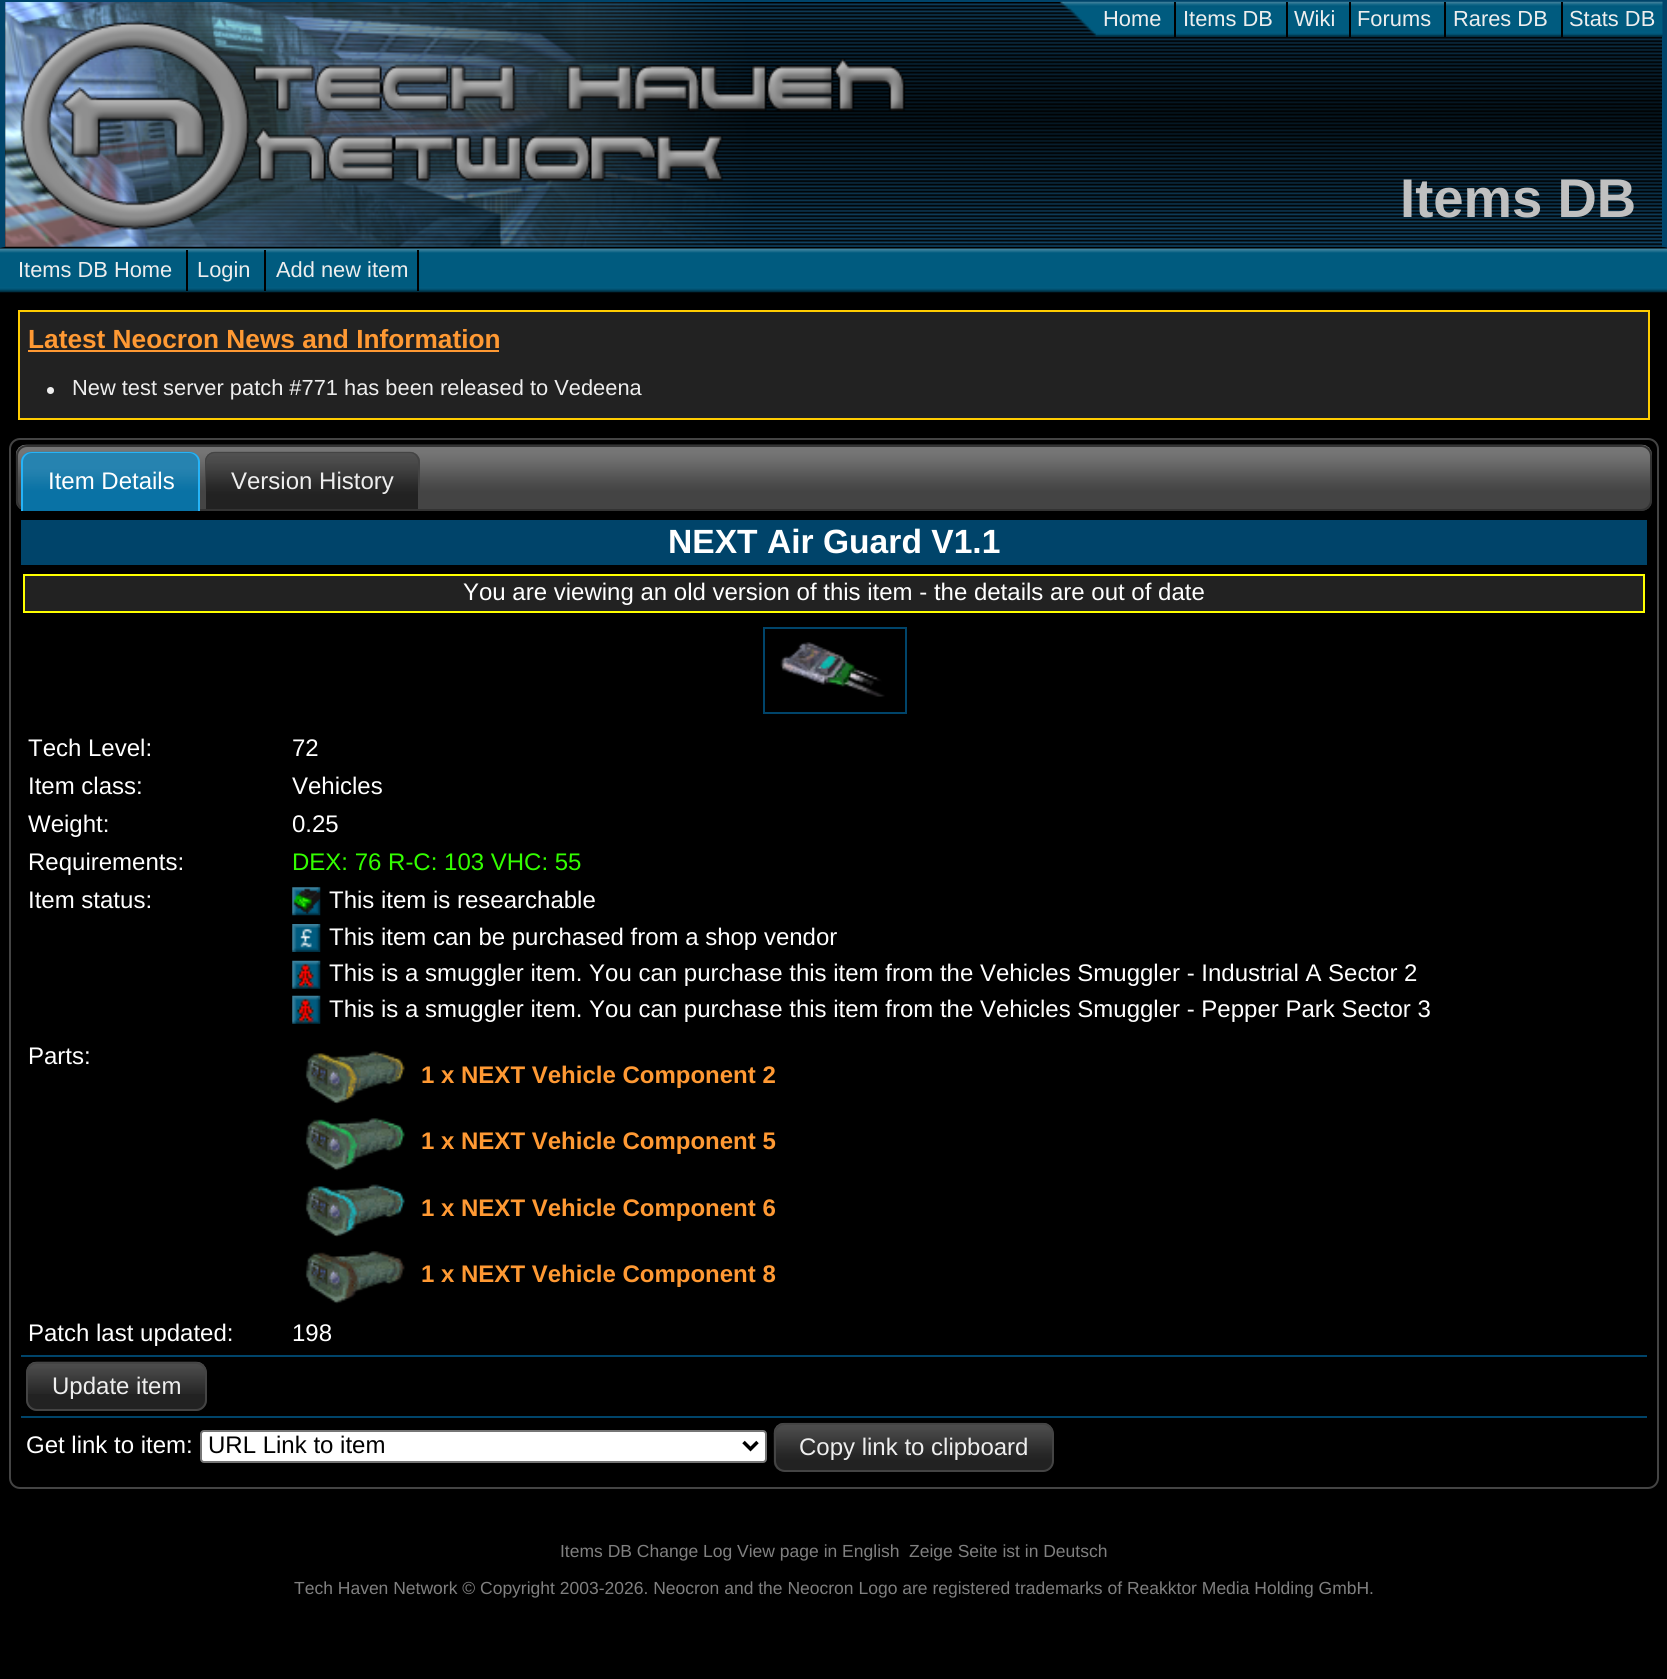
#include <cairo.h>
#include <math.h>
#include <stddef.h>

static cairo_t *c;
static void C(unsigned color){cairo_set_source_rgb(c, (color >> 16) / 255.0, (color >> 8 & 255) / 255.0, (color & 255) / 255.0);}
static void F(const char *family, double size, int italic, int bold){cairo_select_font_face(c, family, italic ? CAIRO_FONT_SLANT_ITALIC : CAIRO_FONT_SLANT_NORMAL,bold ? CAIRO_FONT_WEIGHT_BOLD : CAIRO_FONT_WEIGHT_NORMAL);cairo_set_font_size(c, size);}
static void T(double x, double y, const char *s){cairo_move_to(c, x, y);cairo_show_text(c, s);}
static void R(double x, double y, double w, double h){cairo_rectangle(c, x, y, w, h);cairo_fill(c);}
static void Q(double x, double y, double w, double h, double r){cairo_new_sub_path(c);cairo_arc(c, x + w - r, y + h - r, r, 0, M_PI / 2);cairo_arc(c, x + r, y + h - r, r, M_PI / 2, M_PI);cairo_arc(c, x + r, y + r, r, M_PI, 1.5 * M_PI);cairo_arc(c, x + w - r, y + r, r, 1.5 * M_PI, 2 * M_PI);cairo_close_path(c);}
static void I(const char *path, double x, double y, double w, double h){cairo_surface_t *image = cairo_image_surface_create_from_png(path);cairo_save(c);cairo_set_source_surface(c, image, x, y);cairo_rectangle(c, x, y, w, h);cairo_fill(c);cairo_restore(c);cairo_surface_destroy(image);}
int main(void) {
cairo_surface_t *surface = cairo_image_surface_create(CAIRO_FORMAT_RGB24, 1667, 1679);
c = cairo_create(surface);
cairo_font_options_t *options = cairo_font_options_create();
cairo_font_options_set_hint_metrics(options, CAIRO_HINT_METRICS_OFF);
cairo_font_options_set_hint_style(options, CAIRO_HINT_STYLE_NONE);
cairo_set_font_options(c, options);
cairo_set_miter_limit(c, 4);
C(0x000000);
cairo_paint(c);
I("1.png",5,2,1657,245);
C(0x00446a);
R(0,0,1667,2);
cairo_new_path(c);
cairo_move_to(c,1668,0);
cairo_line_to(c,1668,248);
cairo_line_to(c,1662,247);
cairo_line_to(c,1662,2);
cairo_close_path(c);
cairo_fill(c);
C(0x000000);
cairo_new_path(c);
cairo_move_to(c,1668,248);
cairo_line_to(c,0,248);
cairo_line_to(c,5,247);
cairo_line_to(c,1662,247);
cairo_close_path(c);
cairo_fill(c);
C(0x00446a);
cairo_new_path(c);
cairo_move_to(c,0,248);
cairo_line_to(c,0,0);
cairo_line_to(c,5,2);
cairo_line_to(c,5,247);
cairo_close_path(c);
cairo_fill(c);
I("2.png",1059,1,604,36);
F("Liberation Sans",21.85,0,0);
C(0xeeeeee);
T(1103,26,"Home");
T(1183,26,"Items DB");
C(0x000000);
R(1174,2,2,35);
C(0xeeeeee);
T(1294,26,"Wiki");
C(0x000000);
R(1286,2,2,35);
C(0xeeeeee);
T(1357,26,"Forums");
C(0x000000);
R(1349,2,2,35);
C(0xeeeeee);
T(1453,26,"Rares DB");
C(0x000000);
R(1444,2,2,35);
C(0xeeeeee);
T(1569,26,"Stats DB");
C(0x000000);
R(1561,2,2,35);
F("Liberation Sans",54.5,0,1);
C(0xc0c0c0);
T(1400,217,"Items DB");
I("3.png",0,248,1667,45);
F("Liberation Sans",21.85,0,0);
C(0xeeeeee);
T(18,277,"Items DB Home");
T(197,277,"Login");
C(0x000000);
R(186,250,2,41);
C(0xeeeeee);
T(276,277,"Add new item");
C(0x000000);
R(417,250,2,41);
R(264,250,2,41);
C(0x222222);
cairo_rectangle(c,19,311,1630,108);
cairo_fill_preserve(c);
C(0xffcc01);
cairo_stroke(c);
F("Liberation Sans",26.25,0,1);
C(0xff9933);
T(28,348,"Latest Neocron News and Information");
R(28,350,471,2);
C(0xeeeeee);
cairo_new_path(c);
cairo_arc(c,50.5,390.5,3.5,0,2 * M_PI);
cairo_fill(c);
F("Liberation Sans",21.85,0,0);
T(72,395,"New test server patch #771 has been released to Vedeena");
Q(10,439,1648,1049,10);
C(0x444444);
cairo_stroke(c);
I("4.png",15,444,1637,67);
Q(17,446,1634,64,10);
C(0x333333);
cairo_stroke(c);
I("5.png",21,451,179,60);
C(0x26b3f7);
cairo_set_fill_rule(c,CAIRO_FILL_RULE_EVEN_ODD);
cairo_new_path(c);
cairo_move_to(c,32,452);
cairo_line_to(c,189,452);
cairo_curve_to(c,195,452,200,456,200,462);
cairo_line_to(c,200,511);
cairo_line_to(c,21,511);
cairo_line_to(c,21,462);
cairo_curve_to(c,21,456,26,452,32,452);
cairo_close_path(c);
cairo_move_to(c,32,453);
cairo_line_to(c,189,453);
cairo_curve_to(c,194,453,198,457,198,462);
cairo_line_to(c,198,511);
cairo_line_to(c,23,511);
cairo_line_to(c,23,462);
cairo_curve_to(c,23,457,27,453,32,453);
cairo_close_path(c);
cairo_fill(c);
F("Liberation Sans",24,0,0);
C(0xffffff);
T(48,489,"Item Details");
I("6.png",205,451,215,58);
C(0x444444);
cairo_new_path(c);
cairo_move_to(c,215,452);
cairo_line_to(c,410,452);
cairo_curve_to(c,415,452,420,456,420,462);
cairo_line_to(c,420,509);
cairo_line_to(c,205,509);
cairo_line_to(c,205,462);
cairo_curve_to(c,205,456,209,452,215,452);
cairo_close_path(c);
cairo_move_to(c,215,453);
cairo_line_to(c,410,453);
cairo_curve_to(c,414,453,418,457,418,462);
cairo_line_to(c,418,509);
cairo_line_to(c,206,509);
cairo_line_to(c,206,462);
cairo_curve_to(c,206,457,210,453,215,453);
cairo_close_path(c);
cairo_fill(c);
C(0xeeeeee);
T(231,489,"Version History");
C(0x00446a);
R(21,520,1626,45);
F("Liberation Sans",33.6,0,1);
C(0xffffff);
T(668,553,"NEXT Air Guard V1.1");
C(0x222222);
cairo_rectangle(c,24,575,1620,37);
cairo_fill_preserve(c);
C(0xffff00);
cairo_stroke(c);
F("Liberation Sans",24,0,0);
C(0xffffff);
T(463,600,"You are viewing an old version of this item - the details are out of date");
cairo_rectangle(c,764,628,142,85);
C(0x00446a);
cairo_stroke(c);
I("7.png",780,642,105,55);
C(0xffffff);
T(28,756,"Tech Level:");
T(292,756,"72");
T(28,794,"Item class:");
T(292,794,"Vehicles");
T(28,832,"Weight:");
T(292,832,"0.25");
T(28,870,"Requirements:");
C(0x33ff00);
T(292,870,"DEX: 76 R-C: 103 VHC: 55");
C(0xffffff);
T(28,908,"Item status:");
I("8.png",292,887,29,29);
T(329,908,"This item is researchable");
I("9.png",292,924,29,28);
T(329,945,"This item can be purchased from a shop vendor");
I("10.png",292,960,29,29);
T(329,981,"This is a smuggler item. You can purchase this item from the Vehicles Smuggler - Industrial A Sector 2");
I("10.png",292,995,29,29);
T(329,1017,"This is a smuggler item. You can purchase this item from the Vehicles Smuggler - Pepper Park Sector 3");
T(28,1064,"Parts:");
I("11.png",305,1051,100,53);
F("Liberation Sans",24,0,1);
C(0xff9933);
T(421,1083,"1 x NEXT Vehicle Component 2");
I("12.png",305,1118,100,53);
T(421,1149,"1 x NEXT Vehicle Component 5");
I("13.png",305,1184,100,53);
T(421,1216,"1 x NEXT Vehicle Component 6");
I("14.png",305,1251,100,53);
T(421,1282,"1 x NEXT Vehicle Component 8");
F("Liberation Sans",24,0,0);
C(0xffffff);
T(28,1341,"Patch last updated:");
T(292,1341,"198");
C(0x00446a);
R(21,1355,1626,2);
C(0x222222);
Q(26,1362,181,49,11);
cairo_fill(c);
I("15.png",26,1361,181,33);
Q(27,1363,179,47,10);
C(0x444444);
cairo_stroke(c);
C(0xeeeeee);
T(52,1394,"Update item");
C(0x00446a);
R(21,1416,1626,2);
C(0xffffff);
T(26,1453,"Get link to item:");
Q(201,1431,565,31,3);
cairo_fill_preserve(c);
C(0x767676);
cairo_stroke(c);
cairo_new_path(c);
cairo_move_to(c,743.5,1442);
cairo_line_to(c,750.5,1449);
cairo_line_to(c,757.5,1442);
C(0x000000);
cairo_set_line_width(c,3.5);
cairo_stroke(c);
T(208,1453,"URL Link to item");
I("16.png",773,1422,281,50);
Q(775,1424,278,47,10);
C(0x444444);
cairo_set_line_width(c,2);
cairo_stroke(c);
C(0xeeeeee);
T(799,1455,"Copy link to clipboard");
F("Liberation Sans",17.5,0,0);
C(0x808080);
T(560,1557,"Items DB Change Log View page in English");
T(909,1557,"Zeige Seite ist in Deutsch");
T(294,1594,"Tech Haven Network © Copyright 2003-2026. Neocron and the Neocron Logo are registered trademarks of Reakktor Media Holding GmbH.");
cairo_surface_write_to_png(surface, "o.png");
cairo_font_options_destroy(options);
cairo_destroy(c);
cairo_surface_destroy(surface);
return 0;
}
